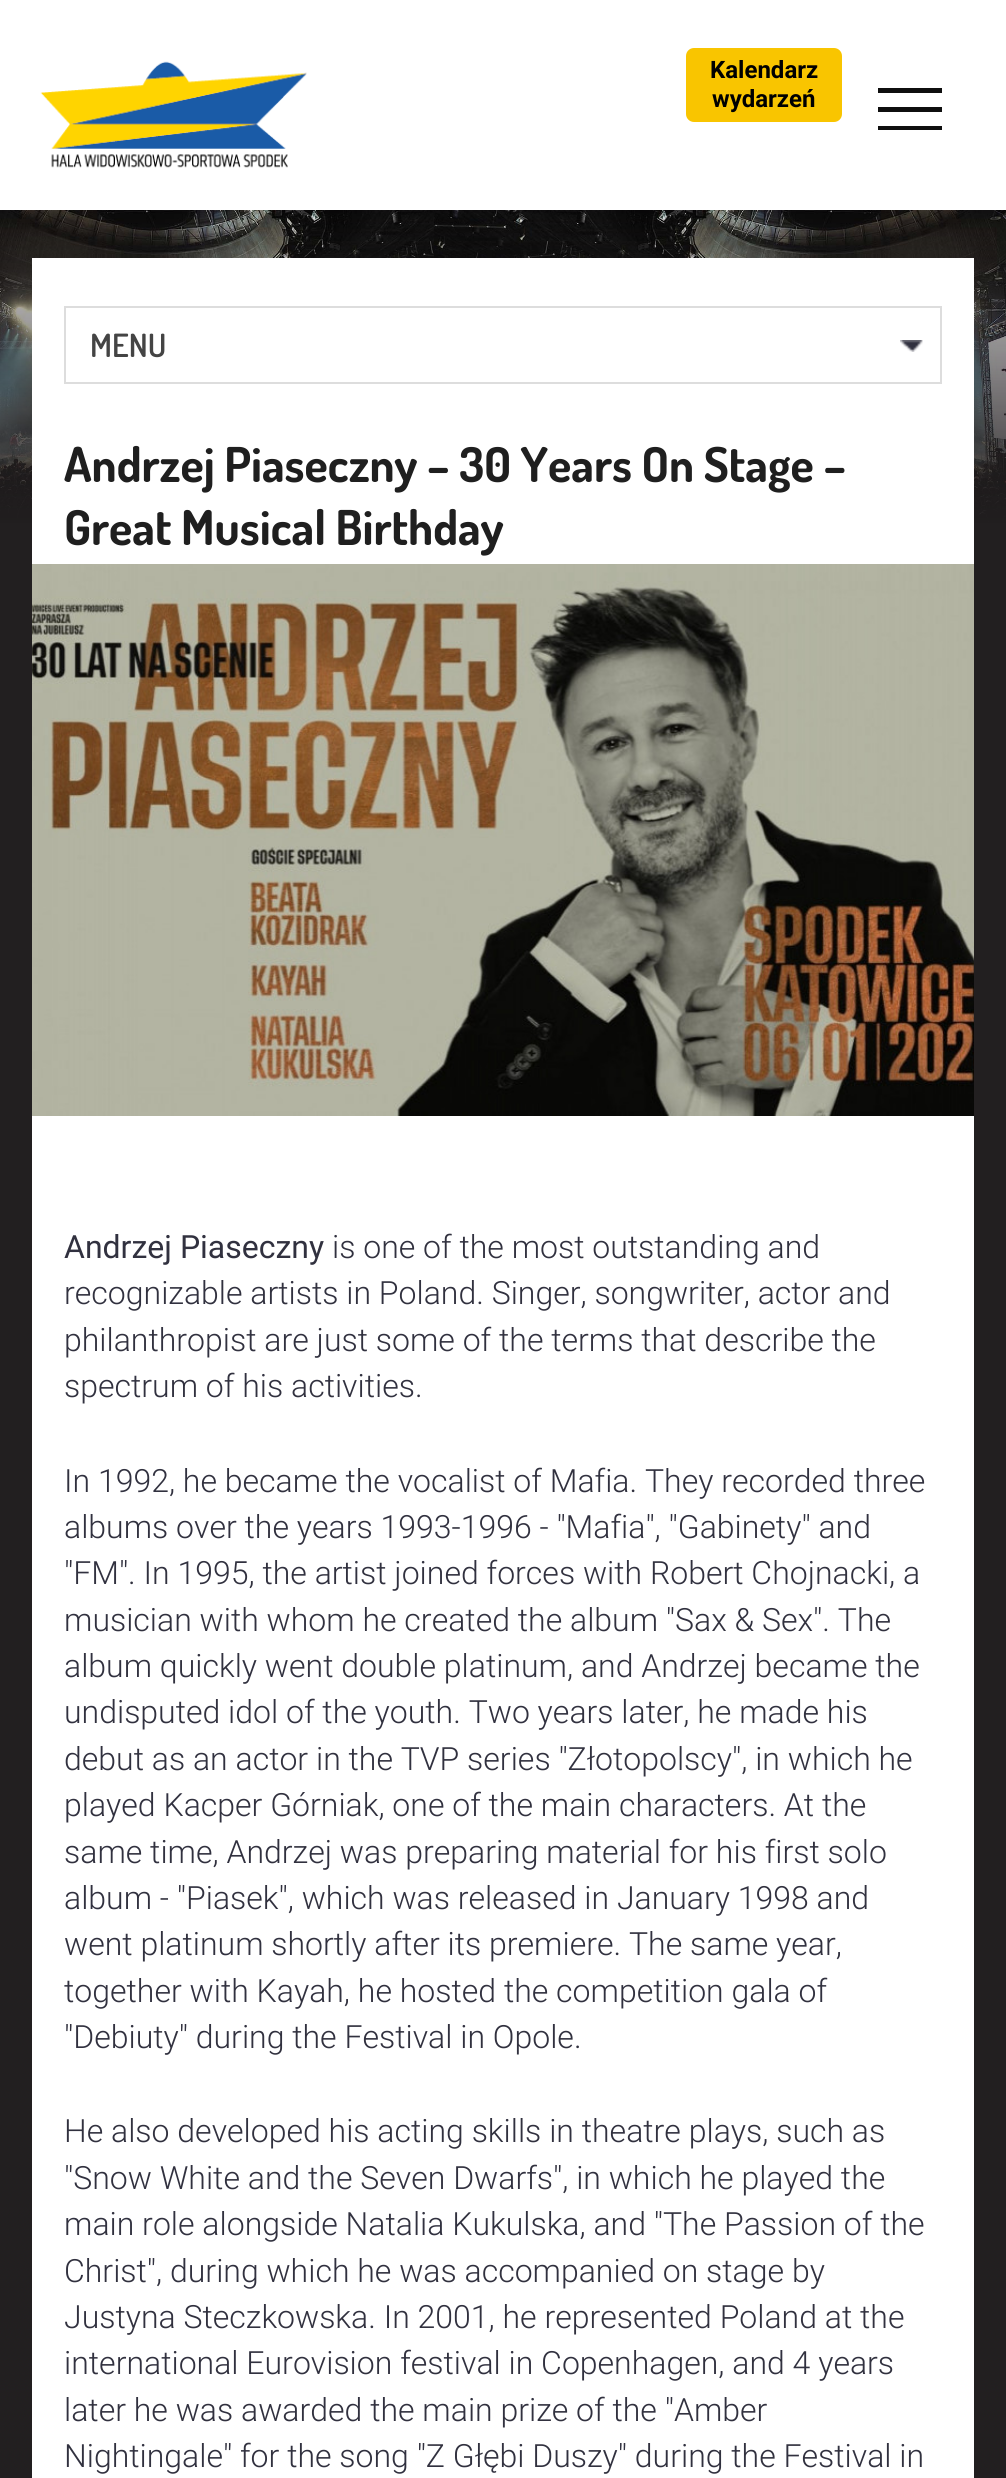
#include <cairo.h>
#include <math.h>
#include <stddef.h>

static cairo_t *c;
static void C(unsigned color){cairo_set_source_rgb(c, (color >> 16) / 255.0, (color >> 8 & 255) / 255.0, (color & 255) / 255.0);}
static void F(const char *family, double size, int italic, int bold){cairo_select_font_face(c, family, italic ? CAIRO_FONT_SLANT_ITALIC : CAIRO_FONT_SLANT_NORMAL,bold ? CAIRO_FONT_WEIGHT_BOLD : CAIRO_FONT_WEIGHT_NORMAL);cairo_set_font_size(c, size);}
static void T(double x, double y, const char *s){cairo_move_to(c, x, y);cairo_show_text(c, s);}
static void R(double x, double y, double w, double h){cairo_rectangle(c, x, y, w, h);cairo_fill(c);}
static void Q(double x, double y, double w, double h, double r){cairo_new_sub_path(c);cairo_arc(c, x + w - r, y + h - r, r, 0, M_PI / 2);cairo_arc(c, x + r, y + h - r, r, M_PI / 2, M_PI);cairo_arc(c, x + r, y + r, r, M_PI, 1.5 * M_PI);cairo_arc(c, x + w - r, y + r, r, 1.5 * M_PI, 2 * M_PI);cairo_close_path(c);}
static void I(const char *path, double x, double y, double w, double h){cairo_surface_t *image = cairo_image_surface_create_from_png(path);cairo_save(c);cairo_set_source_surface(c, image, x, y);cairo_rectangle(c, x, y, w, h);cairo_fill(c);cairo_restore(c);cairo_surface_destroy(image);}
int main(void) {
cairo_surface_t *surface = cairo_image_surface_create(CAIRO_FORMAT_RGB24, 1006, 2478);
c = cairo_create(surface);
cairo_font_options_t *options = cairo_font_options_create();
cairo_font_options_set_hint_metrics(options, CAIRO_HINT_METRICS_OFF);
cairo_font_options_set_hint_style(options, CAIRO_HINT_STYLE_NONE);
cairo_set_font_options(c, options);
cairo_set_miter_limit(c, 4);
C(0x221f20);
cairo_paint(c);
I("1.png",0,210,1006,313);
C(0xffffff);
R(0,0,1006,210);
I("2.png",40,61,267,107);
C(0xf9c500);
Q(686,48,156,74,8);
cairo_fill(c);
F("Roboto",24,0,1);
C(0x000000);
T(710,78,"Kalendarz");
T(712,107,"wydarzeń");
C(0x0f0f0f);
R(878,88,64,5);
R(878,107,64,5);
R(878,126,64,4);
C(0xffffff);
R(32,258,942,2220);
I("3.png",900,340,23,12);
cairo_rectangle(c,65,307,876,76);
C(0xdddddd);
cairo_stroke(c);
F("Dosis SemiBold",32,0,0);
C(0x444444);
T(90,357,"MENU");
F("Dosis",48,0,1);
C(0x1f1f1f);
T(64,482,"Andrzej Piaseczny – 30 Years On Stage –");
T(64,545,"Great Musical Birthday");
I("4.png",32,564,942,552);
F("Roboto",32,0,0);
C(0x31313f);
T(64,1258,"Andrzej Piaseczny");
F("Roboto Light",32,0,0);
T(332,1258,"is one of the most outstanding and");
T(64,1304,"recognizable artists in Poland. Singer, songwriter, actor and");
T(64,1351,"philanthropist are just some of the terms that describe the");
T(64,1397,"spectrum of his activities.");
T(64,1492,"In 1992, he became the vocalist of Mafia. They recorded three");
T(64,1538,"albums over the years 1993-1996 - \"Mafia\", \"Gabinety\" and");
T(64,1584,"\"FM\". In 1995, the artist joined forces with Robert Chojnacki, a");
T(64,1631,"musician with whom he created the album \"Sax & Sex\". The");
T(64,1677,"album quickly went double platinum, and Andrzej became the");
T(64,1723,"undisputed idol of the youth. Two years later, he made his");
T(64,1770,"debut as an actor in the TVP series \"Złotopolscy\", in which he");
T(64,1816,"played Kacper Górniak, one of the main characters. At the");
T(64,1863,"same time, Andrzej was preparing material for his first solo");
T(64,1909,"album - \"Piasek\", which was released in January 1998 and");
T(64,1955,"went platinum shortly after its premiere. The same year,");
T(64,2002,"together with Kayah, he hosted the competition gala of");
T(64,2048,"\"Debiuty\" during the Festival in Opole.");
T(64,2142,"He also developed his acting skills in theatre plays, such as");
T(64,2189,"\"Snow White and the Seven Dwarfs\", in which he played the");
T(64,2235,"main role alongside Natalia Kukulska, and \"The Passion of the");
T(64,2282,"Christ\", during which he was accompanied on stage by");
T(64,2328,"Justyna Steczkowska. In 2001, he represented Poland at the");
T(64,2374,"international Eurovision festival in Copenhagen, and 4 years");
T(64,2421,"later he was awarded the main prize of the \"Amber");
T(64,2467,"Nightingale\" for the song \"Z Głębi Duszy\" during the Festival in");
cairo_surface_write_to_png(surface, "o.png");
cairo_font_options_destroy(options);
cairo_destroy(c);
cairo_surface_destroy(surface);
return 0;
}
